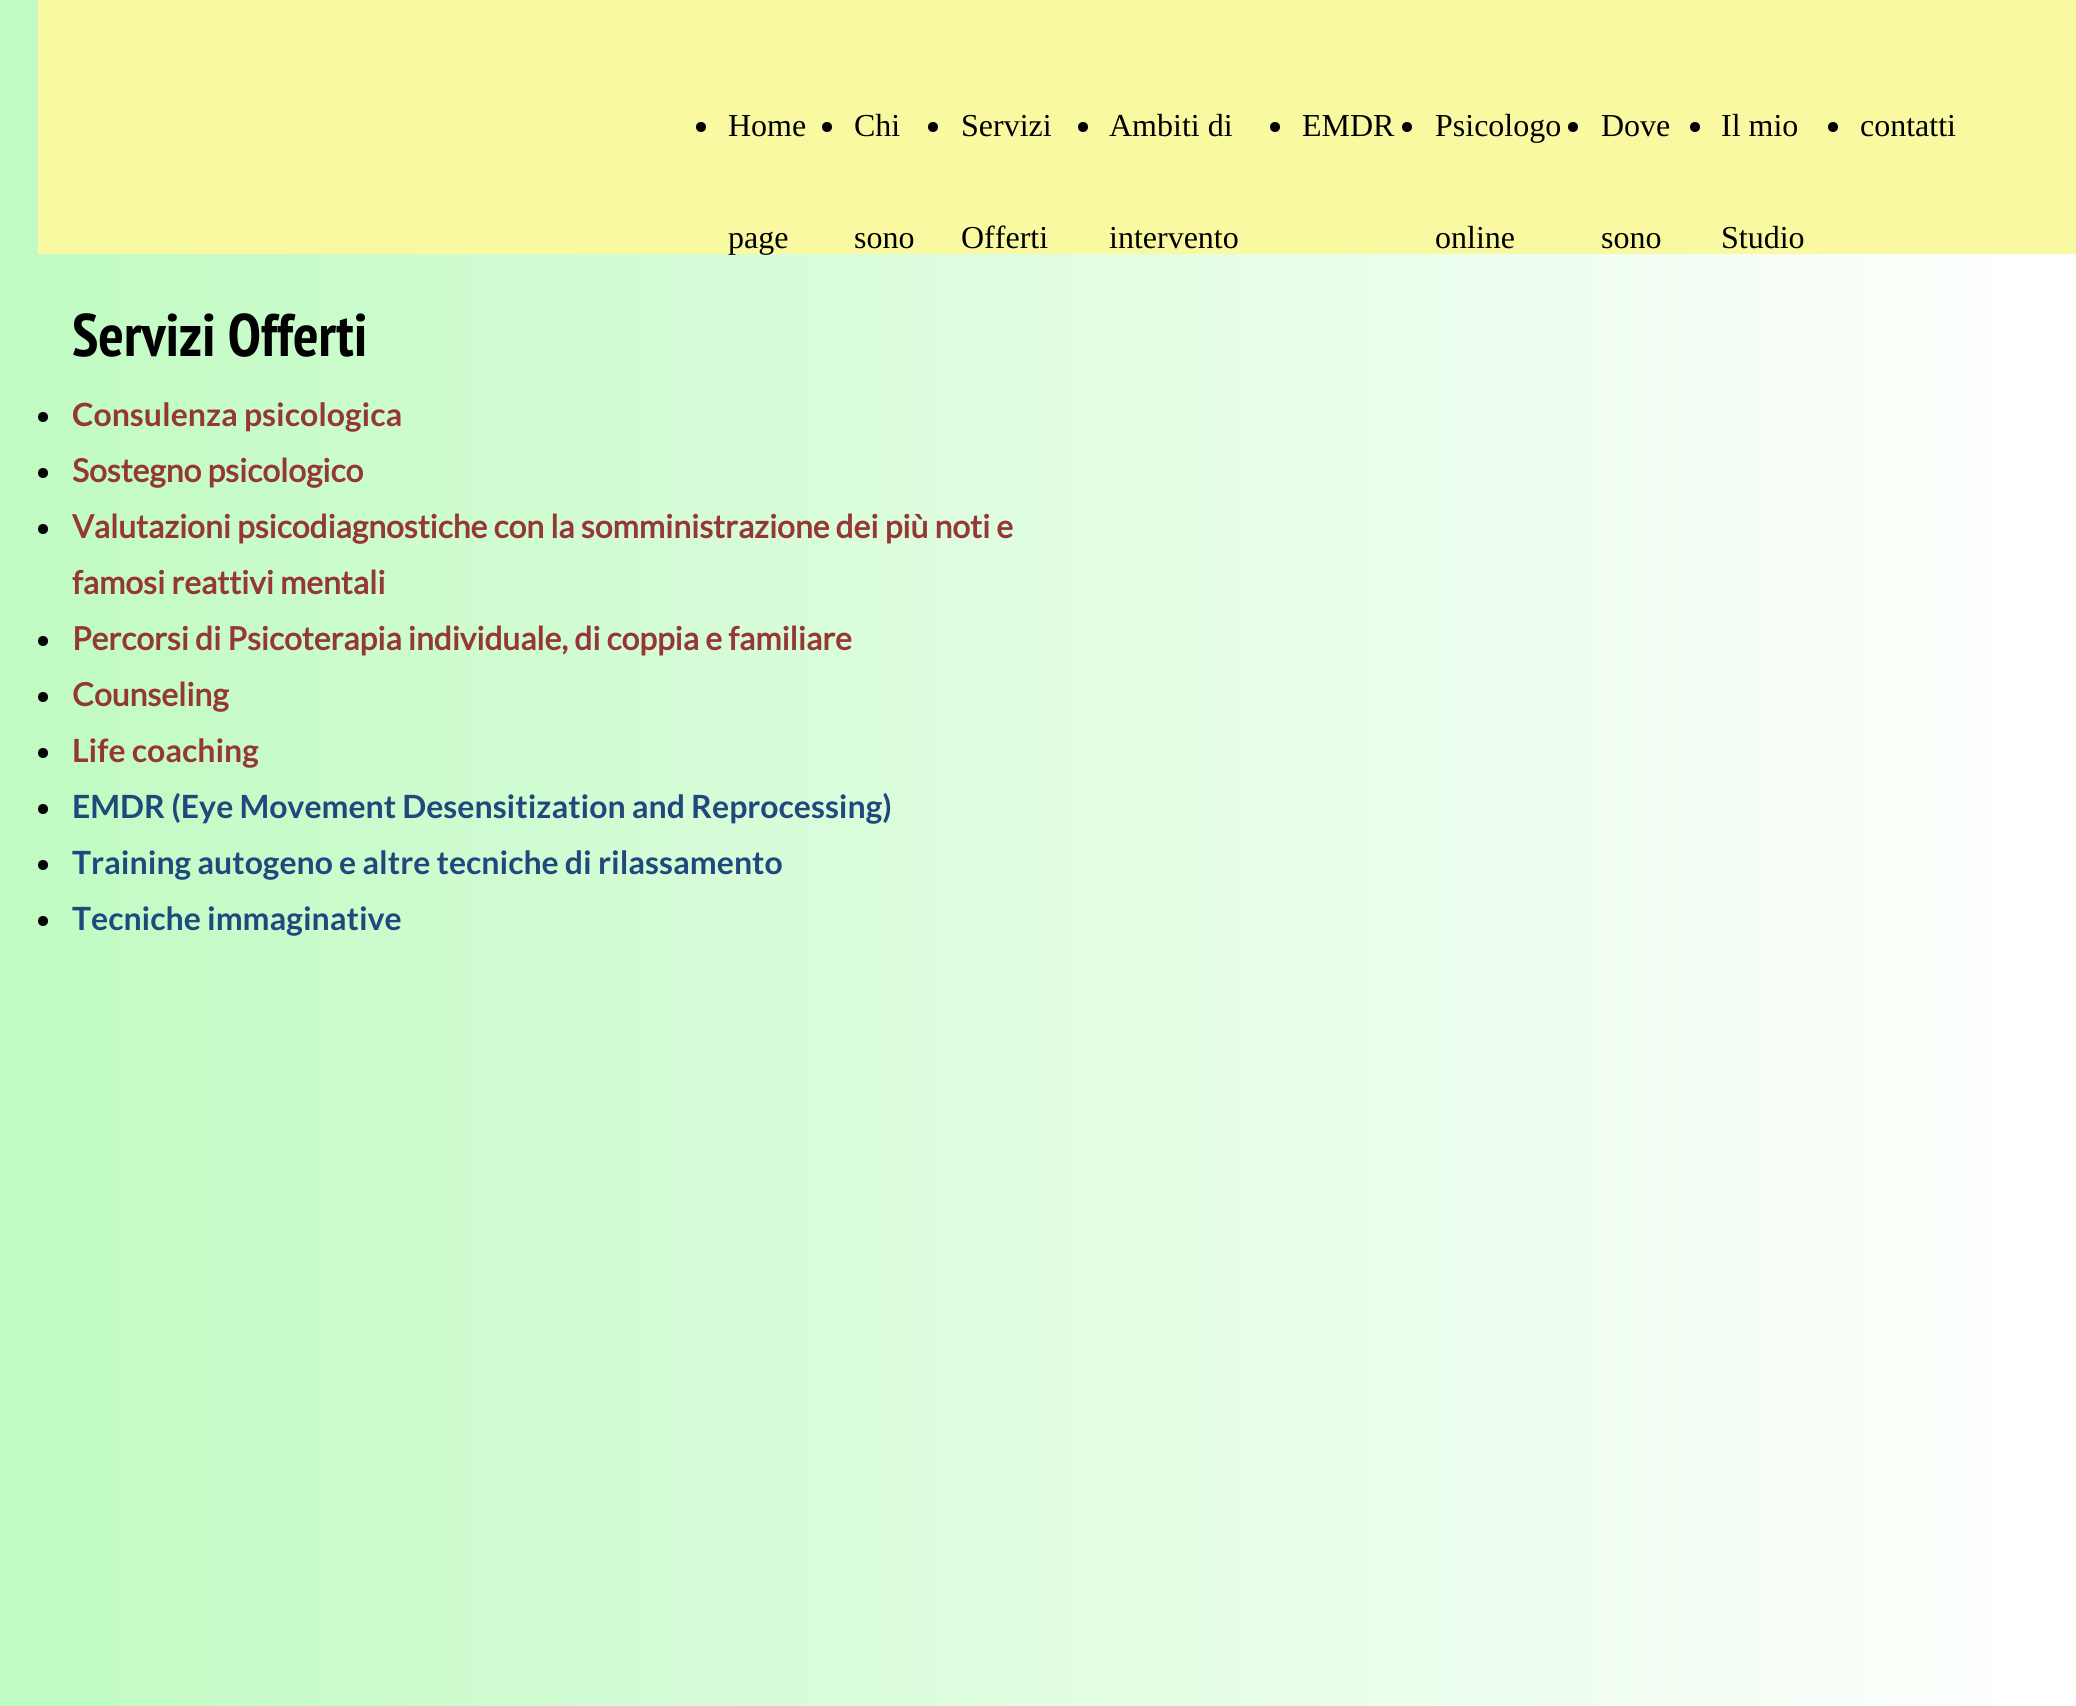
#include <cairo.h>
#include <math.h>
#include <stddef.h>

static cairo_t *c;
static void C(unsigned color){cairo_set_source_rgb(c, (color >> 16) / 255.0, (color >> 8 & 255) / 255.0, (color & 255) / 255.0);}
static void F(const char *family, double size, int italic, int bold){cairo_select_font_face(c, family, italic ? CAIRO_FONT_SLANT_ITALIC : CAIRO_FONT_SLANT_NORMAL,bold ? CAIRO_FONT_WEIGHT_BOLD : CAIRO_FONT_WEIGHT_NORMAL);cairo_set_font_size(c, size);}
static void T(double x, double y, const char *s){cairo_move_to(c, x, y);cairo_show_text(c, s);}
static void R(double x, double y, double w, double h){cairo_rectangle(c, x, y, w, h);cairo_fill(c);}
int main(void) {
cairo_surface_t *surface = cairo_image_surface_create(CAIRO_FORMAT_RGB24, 2076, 1706);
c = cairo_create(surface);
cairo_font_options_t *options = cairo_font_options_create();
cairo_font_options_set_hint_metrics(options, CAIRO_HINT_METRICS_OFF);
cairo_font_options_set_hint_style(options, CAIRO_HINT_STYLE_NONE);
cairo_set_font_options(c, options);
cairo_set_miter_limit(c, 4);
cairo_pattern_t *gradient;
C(0xffffff);
cairo_paint(c);
gradient = cairo_pattern_create_linear(0,853,2076,853);
cairo_pattern_add_color_stop_rgba(gradient,0,0.753,0.984,0.761,1);
cairo_pattern_add_color_stop_rgba(gradient,1,1,1,1,1);
cairo_set_source(c,gradient);
cairo_pattern_destroy(gradient);
R(0,0,1994,1706);
C(0xf8f9a0);
R(38,0,2038,254);
C(0x000000);
cairo_arc(c,701,127,5,0,2 * M_PI);
cairo_fill(c);
F("Liberation Serif",32,0,0);
T(728,136,"Home");
T(728,248,"page");
cairo_new_path(c);
cairo_arc(c,827,127,5,0,2 * M_PI);
cairo_fill(c);
T(854,136,"Chi");
T(854,248,"sono");
cairo_new_path(c);
cairo_arc(c,933,127,5,0,2 * M_PI);
cairo_fill(c);
T(961,136,"Servizi");
T(961,248,"Offerti");
cairo_new_path(c);
cairo_arc(c,1083,127,5,0,2 * M_PI);
cairo_fill(c);
T(1109,136,"Ambiti di");
T(1109,248,"intervento");
cairo_new_path(c);
cairo_arc(c,1275,127,5,0,2 * M_PI);
cairo_fill(c);
T(1302,136,"EMDR");
cairo_new_path(c);
cairo_arc(c,1407,127,5,0,2 * M_PI);
cairo_fill(c);
T(1435,136,"Psicologo");
T(1435,248,"online");
cairo_new_path(c);
cairo_arc(c,1573,127,5,0,2 * M_PI);
cairo_fill(c);
T(1601,136,"Dove");
T(1601,248,"sono");
cairo_new_path(c);
cairo_arc(c,1695,127,5,0,2 * M_PI);
cairo_fill(c);
T(1721,136,"Il mio");
T(1721,248,"Studio");
cairo_new_path(c);
cairo_arc(c,1833,127,5,0,2 * M_PI);
cairo_fill(c);
T(1860,136,"contatti");
F("PT Sans Narrow",60,0,1);
T(72,356,"Servizi Offerti");
cairo_new_path(c);
cairo_arc(c,43,417,5,0,2 * M_PI);
cairo_fill(c);
F("Lato",32,0,1);
C(0x953734);
T(72,426,"Consulenza psicologica");
C(0x000000);
cairo_new_path(c);
cairo_arc(c,43,473,5,0,2 * M_PI);
cairo_fill(c);
F("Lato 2",32,0,1);
C(0x953734);
T(72,482,"Sostegno psicologico");
C(0x000000);
cairo_new_path(c);
cairo_arc(c,43,529,5,0,2 * M_PI);
cairo_fill(c);
C(0x953734);
T(72,538,"Valutazioni psicodiagnostiche con la somministrazione dei più noti e");
T(72,594,"famosi reattivi mentali");
C(0x000000);
cairo_new_path(c);
cairo_arc(c,43,641,5,0,2 * M_PI);
cairo_fill(c);
C(0x953734);
T(72,650,"Percorsi di Psicoterapia individuale, di coppia e familiare");
C(0x000000);
cairo_new_path(c);
cairo_arc(c,43,697,5,0,2 * M_PI);
cairo_fill(c);
C(0x953734);
T(72,706,"Counseling");
C(0x000000);
cairo_new_path(c);
cairo_arc(c,43,753,5,0,2 * M_PI);
cairo_fill(c);
F("Lato",32,0,1);
C(0x953734);
T(72,762,"Life coaching");
C(0x000000);
cairo_new_path(c);
cairo_arc(c,43,809,5,0,2 * M_PI);
cairo_fill(c);
C(0x1f497d);
T(72,818,"EMDR (Eye Movement Desensitization and Reprocessing)");
C(0x000000);
cairo_new_path(c);
cairo_arc(c,43,865,5,0,2 * M_PI);
cairo_fill(c);
C(0x1f497d);
T(72,874,"Training autogeno e altre tecniche di rilassamento");
C(0x000000);
cairo_new_path(c);
cairo_arc(c,43,921,5,0,2 * M_PI);
cairo_fill(c);
C(0x1f497d);
T(72,930,"Tecniche immaginative");
cairo_surface_write_to_png(surface, "o.png");
cairo_font_options_destroy(options);
cairo_destroy(c);
cairo_surface_destroy(surface);
return 0;
}
